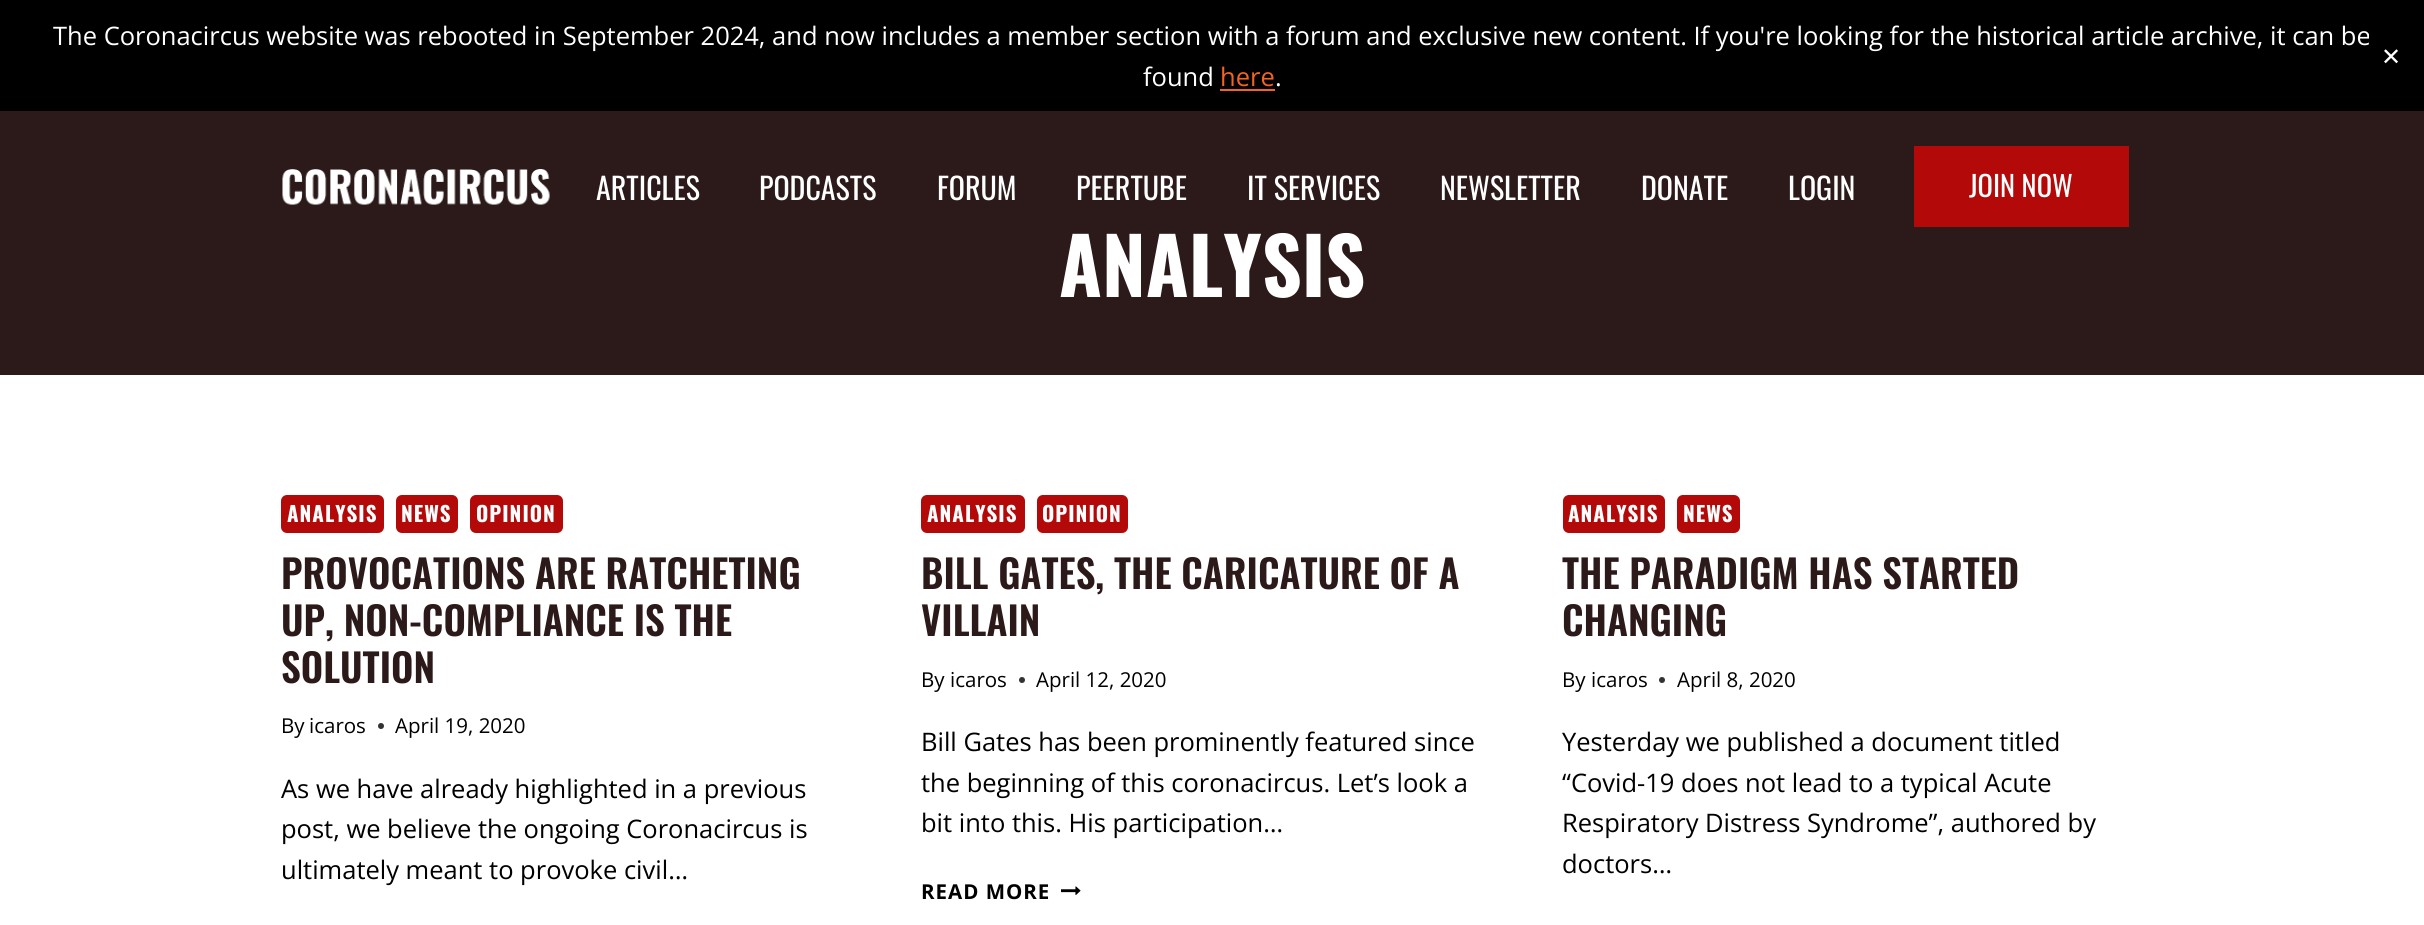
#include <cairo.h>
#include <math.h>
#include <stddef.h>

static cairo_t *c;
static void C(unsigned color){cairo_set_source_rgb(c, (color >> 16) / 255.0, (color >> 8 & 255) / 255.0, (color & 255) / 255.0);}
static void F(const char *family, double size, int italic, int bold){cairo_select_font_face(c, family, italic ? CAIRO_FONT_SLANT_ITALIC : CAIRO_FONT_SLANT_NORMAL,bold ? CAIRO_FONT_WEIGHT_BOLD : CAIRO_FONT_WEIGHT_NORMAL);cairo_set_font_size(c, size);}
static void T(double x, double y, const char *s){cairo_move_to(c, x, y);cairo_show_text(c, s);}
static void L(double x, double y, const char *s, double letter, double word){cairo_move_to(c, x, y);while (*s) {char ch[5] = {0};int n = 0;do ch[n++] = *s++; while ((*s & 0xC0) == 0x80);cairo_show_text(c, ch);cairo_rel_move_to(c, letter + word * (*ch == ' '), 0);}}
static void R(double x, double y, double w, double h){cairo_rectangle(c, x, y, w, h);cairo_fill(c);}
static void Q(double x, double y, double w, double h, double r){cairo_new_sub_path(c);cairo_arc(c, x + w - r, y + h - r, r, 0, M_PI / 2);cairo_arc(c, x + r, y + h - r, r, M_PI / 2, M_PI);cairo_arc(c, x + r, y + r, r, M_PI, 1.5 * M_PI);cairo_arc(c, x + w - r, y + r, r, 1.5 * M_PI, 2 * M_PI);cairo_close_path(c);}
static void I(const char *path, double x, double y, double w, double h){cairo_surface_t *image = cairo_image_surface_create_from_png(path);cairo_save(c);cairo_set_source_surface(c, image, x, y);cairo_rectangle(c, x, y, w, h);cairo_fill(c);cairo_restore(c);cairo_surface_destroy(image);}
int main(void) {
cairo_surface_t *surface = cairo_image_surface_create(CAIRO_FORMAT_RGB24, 2424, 925);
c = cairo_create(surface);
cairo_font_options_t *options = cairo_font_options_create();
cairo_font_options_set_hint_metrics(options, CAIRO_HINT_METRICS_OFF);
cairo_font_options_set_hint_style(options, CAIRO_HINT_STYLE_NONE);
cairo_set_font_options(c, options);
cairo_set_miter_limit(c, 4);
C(0xffffff);
cairo_paint(c);
C(0x000000);
R(0,0,2424,111);
F("Open Sans",25.5,0,0);
C(0xffffff);
T(53,45,"The Coronacircus website was rebooted in September 2024, and now includes a member section with a forum and exclusive new content. If you're looking for the historical article archive, it can be");
T(1143,86,"found");
C(0xf16521);
T(1220,86,"here");
C(0xffffff);
T(1275,86,".");
C(0xf16521);
R(1220,89,55,2);
F("DejaVu Sans",24,0,0);
C(0xffffff);
T(2381,65,"✕");
C(0x2c1a1a);
R(0,111,2424,264);
I("1.png",282,169,268,36);
F("Oswald",30,0,0);
C(0xffffff);
T(596,200,"ARTICLES");
T(759,200,"PODCASTS");
T(937,200,"FORUM");
T(1076,200,"PEERTUBE");
T(1247,200,"IT SERVICES");
T(1440,200,"NEWSLETTER");
T(1641,200,"DONATE");
T(1788,200,"LOGIN");
C(0xb30909);
R(1914,146,215,81);
F("Oswald",28.5,0,0);
C(0xffffff);
T(1969,197,"JOIN NOW");
F("Oswald",78,0,1);
T(1059,297,"ANALYSIS");
C(0xb30909);
Q(281,495,103,38,6);
cairo_fill(c);
F("Oswald",21,0,1);
C(0xffffff);
L(287,522,"ANALYSIS",1,0);
C(0xb30909);
Q(396,495,62,38,6);
cairo_fill(c);
C(0xffffff);
L(401,522,"NEWS",1,0);
C(0xb30909);
Q(470,495,93,38,6);
cairo_fill(c);
C(0xffffff);
L(476,522,"OPINION",1,0);
F("Oswald SemiBold",39,0,0);
C(0x2c1a1a);
T(281,589,"PROVOCATIONS ARE RATCHETING");
T(281,636,"UP, NON-COMPLIANCE IS THE");
T(281,683,"SOLUTION");
F("Open Sans",20.5,0,0);
C(0x000000);
T(281,733,"By");
T(309,733,"icaros");
C(0x333333);
cairo_new_path(c);
cairo_arc(c,381,726,3,0,2 * M_PI);
cairo_fill(c);
C(0x000000);
T(395,733,"April 19, 2020");
F("Open Sans",25.5,0,0);
T(281,798,"As we have already highlighted in a previous");
T(281,838,"post, we believe the ongoing Coronacircus is");
T(281,879,"ultimately meant to provoke civil…");
C(0xb30909);
Q(921,495,104,38,6);
cairo_fill(c);
F("Oswald",21,0,1);
C(0xffffff);
L(927,522,"ANALYSIS",1,0);
C(0xb30909);
Q(1037,495,91,38,6);
cairo_fill(c);
C(0xffffff);
L(1042,522,"OPINION",1,0);
F("Oswald SemiBold",39,0,0);
C(0x2c1a1a);
T(921,589,"BILL GATES, THE CARICATURE OF A");
T(921,636,"VILLAIN");
F("Open Sans",20.5,0,0);
C(0x000000);
T(921,687,"By");
T(950,687,"icaros");
C(0x333333);
cairo_new_path(c);
cairo_arc(c,1022,680,3,0,2 * M_PI);
cairo_fill(c);
C(0x000000);
T(1036,687,"April 12, 2020");
F("Open Sans",25.5,0,0);
T(921,751,"Bill Gates has been prominently featured since");
T(921,792,"the beginning of this coronacircus. Let’s look a");
T(921,832,"bit into this. His participation…");
F("Open Sans",20.5,0,1);
L(921,899,"READ MORE",1,0);
I("2.png",1061,886,20,9);
C(0xb30909);
Q(1563,495,102,38,6);
cairo_fill(c);
F("Oswald",21,0,1);
C(0xffffff);
L(1568,522,"ANALYSIS",1,0);
C(0xb30909);
Q(1677,495,63,38,6);
cairo_fill(c);
C(0xffffff);
L(1683,522,"NEWS",1,0);
F("Oswald SemiBold",39,0,0);
C(0x2c1a1a);
T(1562,589,"THE PARADIGM HAS STARTED");
T(1562,636,"CHANGING");
F("Open Sans",20.5,0,0);
C(0x000000);
T(1562,687,"By");
T(1591,687,"icaros");
C(0x333333);
cairo_new_path(c);
cairo_arc(c,1662,680,3,0,2 * M_PI);
cairo_fill(c);
C(0x000000);
T(1677,687,"April 8, 2020");
F("Open Sans",25.5,0,0);
T(1562,751,"Yesterday we published a document titled");
T(1562,792,"“Covid-19 does not lead to a typical Acute");
T(1562,832,"Respiratory Distress Syndrome”, authored by");
T(1562,873,"doctors…");
cairo_surface_write_to_png(surface, "o.png");
cairo_font_options_destroy(options);
cairo_destroy(c);
cairo_surface_destroy(surface);
return 0;
}
